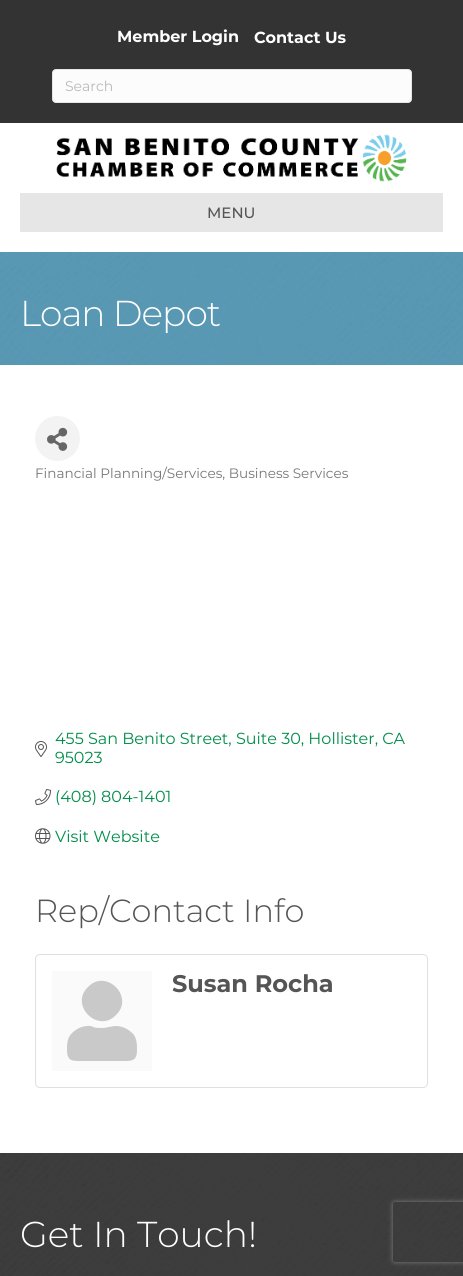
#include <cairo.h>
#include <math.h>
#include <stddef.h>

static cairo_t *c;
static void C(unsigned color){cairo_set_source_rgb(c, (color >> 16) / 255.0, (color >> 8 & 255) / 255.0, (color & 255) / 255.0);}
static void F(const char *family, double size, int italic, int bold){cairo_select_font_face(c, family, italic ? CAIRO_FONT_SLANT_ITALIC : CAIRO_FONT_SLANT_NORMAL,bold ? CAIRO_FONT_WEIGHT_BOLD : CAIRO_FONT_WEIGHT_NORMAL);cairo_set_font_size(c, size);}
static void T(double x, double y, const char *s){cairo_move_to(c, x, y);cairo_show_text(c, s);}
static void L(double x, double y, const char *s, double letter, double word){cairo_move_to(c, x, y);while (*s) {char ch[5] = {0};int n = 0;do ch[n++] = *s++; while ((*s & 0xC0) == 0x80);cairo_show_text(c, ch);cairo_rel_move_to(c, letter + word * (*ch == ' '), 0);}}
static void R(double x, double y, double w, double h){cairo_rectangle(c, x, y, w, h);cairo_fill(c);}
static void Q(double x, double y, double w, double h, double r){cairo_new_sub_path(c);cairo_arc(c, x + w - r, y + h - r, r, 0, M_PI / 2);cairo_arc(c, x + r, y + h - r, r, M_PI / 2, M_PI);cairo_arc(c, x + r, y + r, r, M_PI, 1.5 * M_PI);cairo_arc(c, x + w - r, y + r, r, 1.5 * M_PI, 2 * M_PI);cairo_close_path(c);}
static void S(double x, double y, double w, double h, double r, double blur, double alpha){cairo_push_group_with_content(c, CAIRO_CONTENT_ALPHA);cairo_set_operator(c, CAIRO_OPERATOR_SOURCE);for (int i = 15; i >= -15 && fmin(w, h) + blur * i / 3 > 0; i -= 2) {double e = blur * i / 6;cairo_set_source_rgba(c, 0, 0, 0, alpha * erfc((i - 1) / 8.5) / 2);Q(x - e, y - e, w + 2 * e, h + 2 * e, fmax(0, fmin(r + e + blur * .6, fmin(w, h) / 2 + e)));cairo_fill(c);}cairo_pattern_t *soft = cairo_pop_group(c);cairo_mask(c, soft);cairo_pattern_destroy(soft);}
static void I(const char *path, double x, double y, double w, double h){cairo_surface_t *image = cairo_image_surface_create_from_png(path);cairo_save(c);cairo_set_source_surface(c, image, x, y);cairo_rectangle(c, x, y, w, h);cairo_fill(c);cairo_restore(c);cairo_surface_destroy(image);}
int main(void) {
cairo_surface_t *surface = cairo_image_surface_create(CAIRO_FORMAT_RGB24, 463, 1276);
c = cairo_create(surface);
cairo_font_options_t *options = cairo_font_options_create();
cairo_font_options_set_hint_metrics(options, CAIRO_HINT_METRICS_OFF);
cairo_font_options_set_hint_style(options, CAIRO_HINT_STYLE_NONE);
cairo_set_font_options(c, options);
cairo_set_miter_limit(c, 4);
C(0xffffff);
cairo_paint(c);
C(0x333333);
R(0,0,463,123);
F("Montserrat",16,0,1);
C(0xffffff);
T(117,42,"Member Login");
T(254,43,"Contact Us");
C(0xfcfcfc);
Q(52.5,69.5,359,33,3.5);
cairo_fill_preserve(c);
C(0xe6e6e6);
cairo_set_line_width(c,1);
cairo_stroke(c);
F("Montserrat",14,0,0);
C(0xb9b9b9);
T(65,91,"Search");
I("1.png",56,134,351,48);
C(0xe6e6e6);
R(20,193,423,39);
F("Montserrat Medium",15,0,0);
C(0x555555);
T(207,218,"MENU");
I("2.png",0,252,463,113);
F("Montserrat Light",36,0,0);
C(0xffffff);
L(20,326,"Loan Depot",-1,0);
C(0xf3f3f3);
cairo_new_path(c);
cairo_arc(c,57.5,438.5,22.5,0,2 * M_PI);
cairo_fill(c);
I("3.png",47,427,21,24);
F("Montserrat",13.6,0,0);
C(0x777777);
T(35,478,"Financial Planning/Services, Business Services");
F("Montserrat",16,0,0);
C(0x008d49);
T(55,744,"455 San Benito Street, Suite 30, Hollister, CA");
I("4.png",35,741,12,16);
T(55,763,"95023");
I("5.png",35,789,16,16);
T(55,802,"(408) 804-1401");
I("6.png",35,828,16,16);
T(55,842,"Visit Website");
F("Montserrat Light",32,0,0);
C(0x555555);
T(35,922,"Rep/Contact Info");
Q(35.5,954.5,392,133,4.5);
C(0xdfdfdf);
cairo_stroke(c);
C(0xfafafa);
R(52,971,100,100);
C(0xc9c9c9);
cairo_new_path(c);
cairo_move_to(c,116,1015);
cairo_curve_to(c,98,1034,69,1005,88,987);
cairo_curve_to(c,106,968,135,997,116,1015);
cairo_close_path(c);
cairo_move_to(c,116,1026);
cairo_curve_to(c,123,1026,130,1030,134,1035);
cairo_curve_to(c,137,1040,137,1045,137,1050);
cairo_curve_to(c,137,1062,131,1061,120,1061);
cairo_line_to(c,84,1061);
cairo_curve_to(c,73,1061,67,1062,67,1050);
cairo_curve_to(c,67,1046,67,1041,69,1037);
cairo_curve_to(c,73,1030,82,1025,91,1026);
cairo_line_to(c,93,1027);
cairo_curve_to(c,96,1028,99,1028,102,1028);
cairo_curve_to(c,107,1028,111,1026,116,1026);
cairo_close_path(c);
cairo_fill(c);
F("Montserrat",24,0,1);
C(0x555555);
T(172,992,"Susan Rocha");
I("7.png",0,1153,463,123);
F("Montserrat Light",36,0,0);
C(0xffffff);
T(20,1247,"Get In Touch!");
cairo_save(c);
cairo_set_fill_rule(c,CAIRO_FILL_RULE_EVEN_ODD);
cairo_new_path(c);
cairo_move_to(c,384,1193);
cairo_line_to(c,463,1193);
cairo_line_to(c,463,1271);
cairo_line_to(c,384,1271);
cairo_close_path(c);
cairo_move_to(c,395,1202);
cairo_line_to(c,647,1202);
cairo_curve_to(c,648,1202,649,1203,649,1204);
cairo_line_to(c,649,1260);
cairo_curve_to(c,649,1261,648,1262,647,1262);
cairo_line_to(c,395,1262);
cairo_curve_to(c,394,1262,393,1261,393,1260);
cairo_line_to(c,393,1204);
cairo_curve_to(c,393,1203,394,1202,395,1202);
cairo_close_path(c);
cairo_clip(c);
C(0x808080);
S(393,1202,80,60,2,2.5,1);
cairo_restore(c);
cairo_surface_write_to_png(surface, "o.png");
cairo_font_options_destroy(options);
cairo_destroy(c);
cairo_surface_destroy(surface);
return 0;
}
